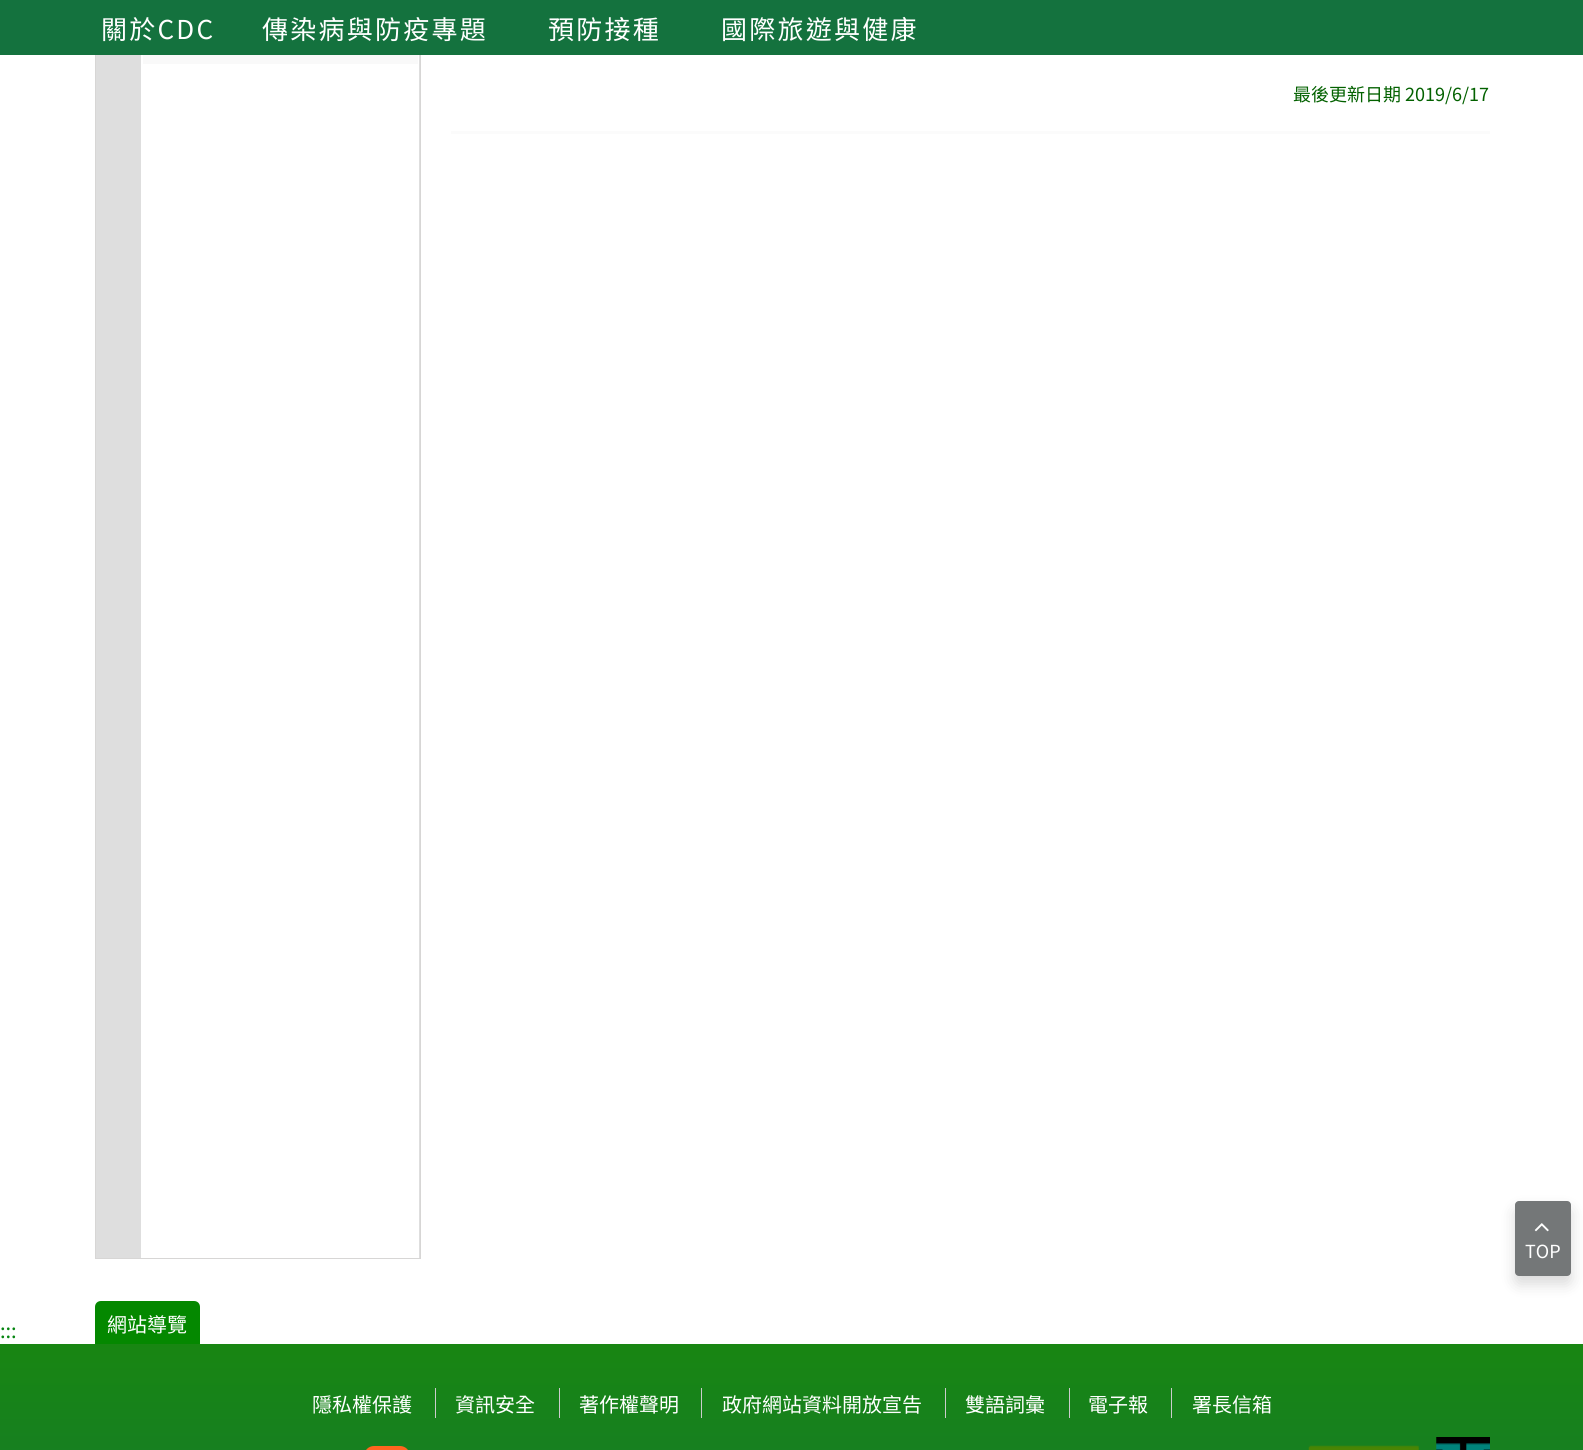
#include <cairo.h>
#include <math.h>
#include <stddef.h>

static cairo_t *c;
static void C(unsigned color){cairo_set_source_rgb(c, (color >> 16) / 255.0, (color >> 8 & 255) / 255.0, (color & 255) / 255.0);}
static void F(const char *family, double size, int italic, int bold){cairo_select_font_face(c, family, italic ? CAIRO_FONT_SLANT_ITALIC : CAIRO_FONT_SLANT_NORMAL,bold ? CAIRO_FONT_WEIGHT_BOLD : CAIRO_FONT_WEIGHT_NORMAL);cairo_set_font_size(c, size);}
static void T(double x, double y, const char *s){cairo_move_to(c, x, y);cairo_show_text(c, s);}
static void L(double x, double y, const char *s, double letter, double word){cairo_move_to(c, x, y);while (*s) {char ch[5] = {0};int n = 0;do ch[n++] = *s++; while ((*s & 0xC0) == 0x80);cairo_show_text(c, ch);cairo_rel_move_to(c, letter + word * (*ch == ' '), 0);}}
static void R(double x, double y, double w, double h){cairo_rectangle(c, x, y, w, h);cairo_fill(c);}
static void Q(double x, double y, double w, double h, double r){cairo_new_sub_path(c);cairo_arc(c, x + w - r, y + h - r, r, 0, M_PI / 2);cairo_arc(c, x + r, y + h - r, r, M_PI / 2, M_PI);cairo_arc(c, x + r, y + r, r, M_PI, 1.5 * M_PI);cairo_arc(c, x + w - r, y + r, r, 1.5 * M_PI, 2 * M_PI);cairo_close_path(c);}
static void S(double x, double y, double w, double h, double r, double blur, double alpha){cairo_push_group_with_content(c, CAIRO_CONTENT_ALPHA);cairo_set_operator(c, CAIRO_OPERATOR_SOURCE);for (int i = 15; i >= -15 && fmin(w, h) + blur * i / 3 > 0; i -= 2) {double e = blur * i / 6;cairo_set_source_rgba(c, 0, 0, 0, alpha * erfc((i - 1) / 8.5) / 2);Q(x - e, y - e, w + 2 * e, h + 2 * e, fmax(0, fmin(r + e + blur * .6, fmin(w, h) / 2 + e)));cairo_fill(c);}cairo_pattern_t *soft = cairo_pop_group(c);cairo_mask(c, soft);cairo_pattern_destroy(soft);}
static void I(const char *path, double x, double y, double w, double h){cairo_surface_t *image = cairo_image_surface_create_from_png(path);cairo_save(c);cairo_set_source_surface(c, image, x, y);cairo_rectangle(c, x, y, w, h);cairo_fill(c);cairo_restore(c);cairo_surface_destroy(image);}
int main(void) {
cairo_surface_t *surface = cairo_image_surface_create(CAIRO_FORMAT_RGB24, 1583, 1450);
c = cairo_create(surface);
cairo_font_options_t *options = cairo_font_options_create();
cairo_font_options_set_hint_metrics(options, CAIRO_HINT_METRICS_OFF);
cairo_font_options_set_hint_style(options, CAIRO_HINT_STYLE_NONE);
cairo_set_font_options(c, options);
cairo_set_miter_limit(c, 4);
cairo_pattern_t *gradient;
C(0xffffff);
cairo_paint(c);
C(0xd7d6d5);
cairo_new_path(c);
cairo_move_to(c,421,-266);
cairo_line_to(c,421,1259);
cairo_line_to(c,420,1258);
cairo_line_to(c,420,-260);
cairo_close_path(c);
cairo_fill(c);
R(95,1258,326,1);
cairo_new_path(c);
cairo_move_to(c,95,1259);
cairo_line_to(c,95,-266);
cairo_line_to(c,96,-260);
cairo_line_to(c,96,1258);
cairo_close_path(c);
cairo_fill(c);
C(0x14723e);
R(0,0,1583,55);
F("Noto Sans TC",26,0,0);
C(0xffffff);
L(101,39,"關於CDC",2.25,0);
L(262,39,"傳染病與防疫專題",2.25,0);
L(548,39,"預防接種",2.25,0);
L(721,39,"國際旅遊與健康",2.25,0);
C(0xdedede);
R(96,55,324,1203);
C(0xffffff);
R(141,55,278,1203);
C(0xf9f9f9);
R(143,55,275,9);
F("Noto Sans TC",18,0,0);
C(0x036100);
T(1293,101,"最後更新日期 2019/6/17");
C(0xfbfbfb);
R(451,131,1039,3);
F("Noto Sans TC",20,0,0);
C(0x068511);
T(0,1338,":::");
C(0x048800);
cairo_new_path(c);
cairo_move_to(c,101,1301);
cairo_line_to(c,194,1301);
cairo_curve_to(c,197.5,1301,200,1303.5,200,1307);
cairo_line_to(c,200,1344);
cairo_line_to(c,95,1344);
cairo_line_to(c,95,1307);
cairo_curve_to(c,95,1303.5,97.5,1301,101,1301);
cairo_close_path(c);
cairo_fill(c);
C(0xffffff);
T(107,1332,"網站導覽");
gradient = cairo_pattern_create_linear(792,1344,792,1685);
cairo_pattern_add_color_stop_rgba(gradient,0,0.094,0.525,0.071,1);
cairo_pattern_add_color_stop_rgba(gradient,1,0.078,0.447,0.243,1);
cairo_set_source(c,gradient);
cairo_pattern_destroy(gradient);
R(0,1344,1583,106);
C(0xffffff);
T(312,1412,"隱私權保護");
T(455,1412,"資訊安全");
C(0xcccccc);
R(435,1388,1,30);
C(0xffffff);
T(579,1412,"著作權聲明");
C(0xcccccc);
R(559,1388,1,30);
C(0xffffff);
T(722,1412,"政府網站資料開放宣告");
C(0xcccccc);
R(701,1388,1,30);
C(0xffffff);
T(965,1412,"雙語詞彙");
C(0xcccccc);
R(945,1388,1,30);
C(0xffffff);
T(1088,1412,"電子報");
C(0xcccccc);
R(1069,1388,1,30);
C(0xffffff);
T(1192,1412,"署長信箱");
C(0xcccccc);
R(1171,1388,1,30);
I("1.png",1308,1445,111,5);
I("2.png",1436,1437,54,13);
C(0xff651f);
Q(364,1446,46,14,10);
cairo_fill(c);
C(0x000000);
S(1515,1209,56,75,4,7.5,.15);
C(0x747778);
Q(1515,1201,56,75,4);
cairo_fill(c);
I("3.png",1534,1223,15,9);
F("Noto Sans TC",18,0,0);
C(0xffffff);
T(1525,1258,"TOP");
cairo_surface_write_to_png(surface, "o.png");
cairo_font_options_destroy(options);
cairo_destroy(c);
cairo_surface_destroy(surface);
return 0;
}
